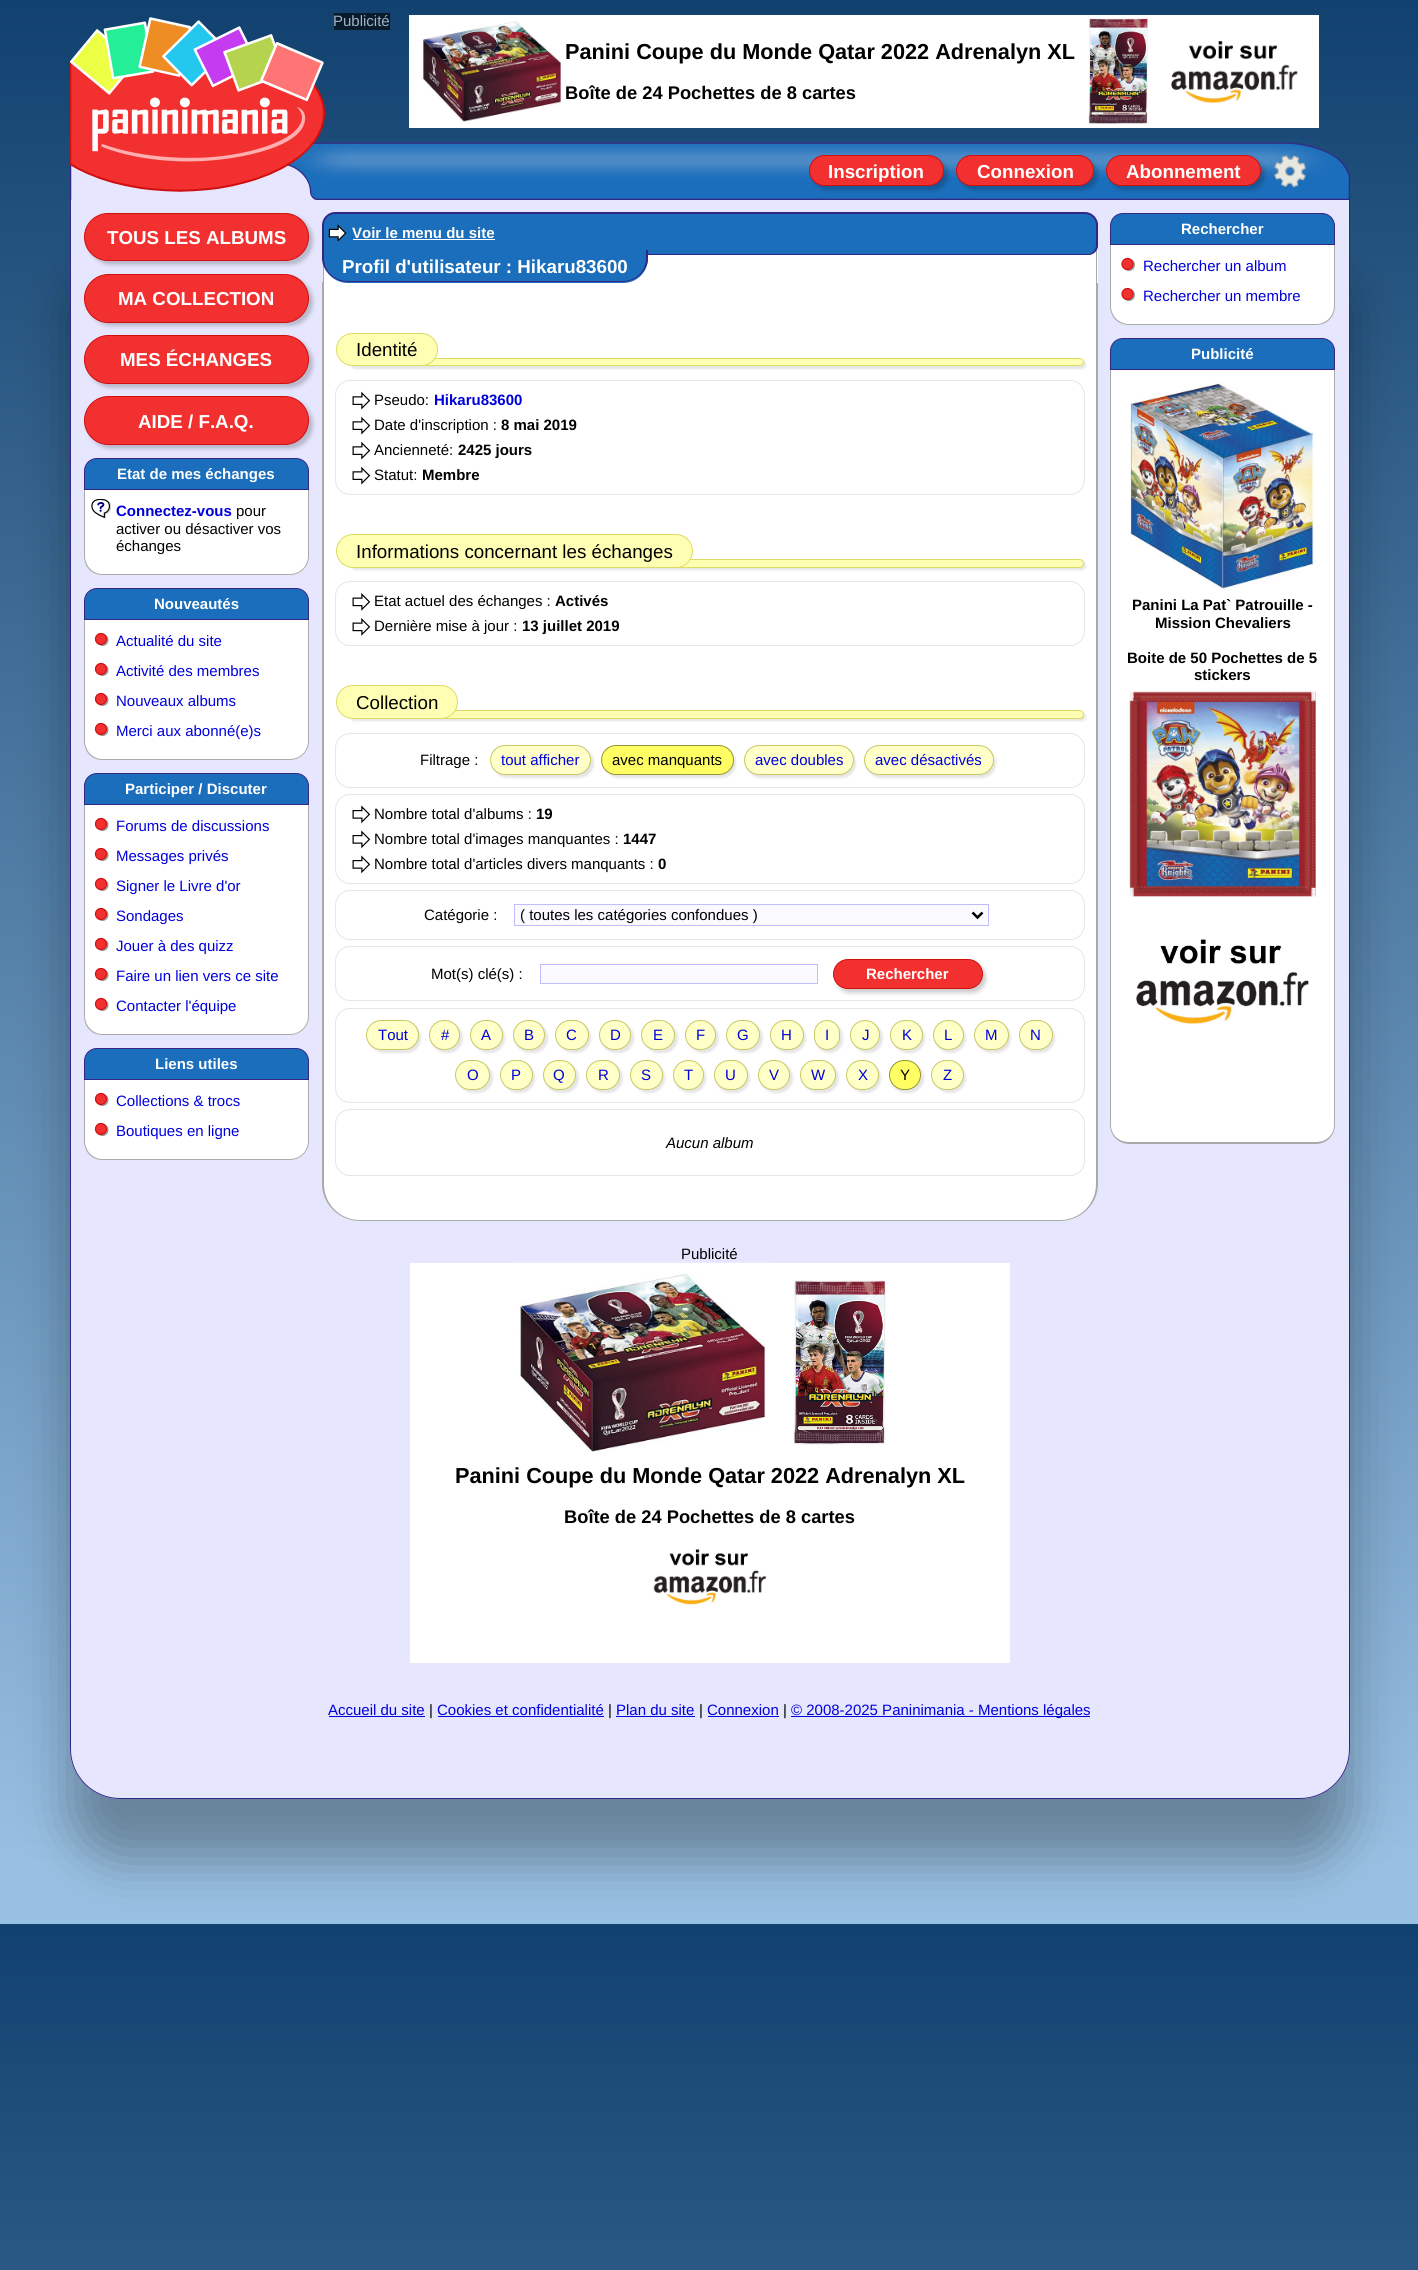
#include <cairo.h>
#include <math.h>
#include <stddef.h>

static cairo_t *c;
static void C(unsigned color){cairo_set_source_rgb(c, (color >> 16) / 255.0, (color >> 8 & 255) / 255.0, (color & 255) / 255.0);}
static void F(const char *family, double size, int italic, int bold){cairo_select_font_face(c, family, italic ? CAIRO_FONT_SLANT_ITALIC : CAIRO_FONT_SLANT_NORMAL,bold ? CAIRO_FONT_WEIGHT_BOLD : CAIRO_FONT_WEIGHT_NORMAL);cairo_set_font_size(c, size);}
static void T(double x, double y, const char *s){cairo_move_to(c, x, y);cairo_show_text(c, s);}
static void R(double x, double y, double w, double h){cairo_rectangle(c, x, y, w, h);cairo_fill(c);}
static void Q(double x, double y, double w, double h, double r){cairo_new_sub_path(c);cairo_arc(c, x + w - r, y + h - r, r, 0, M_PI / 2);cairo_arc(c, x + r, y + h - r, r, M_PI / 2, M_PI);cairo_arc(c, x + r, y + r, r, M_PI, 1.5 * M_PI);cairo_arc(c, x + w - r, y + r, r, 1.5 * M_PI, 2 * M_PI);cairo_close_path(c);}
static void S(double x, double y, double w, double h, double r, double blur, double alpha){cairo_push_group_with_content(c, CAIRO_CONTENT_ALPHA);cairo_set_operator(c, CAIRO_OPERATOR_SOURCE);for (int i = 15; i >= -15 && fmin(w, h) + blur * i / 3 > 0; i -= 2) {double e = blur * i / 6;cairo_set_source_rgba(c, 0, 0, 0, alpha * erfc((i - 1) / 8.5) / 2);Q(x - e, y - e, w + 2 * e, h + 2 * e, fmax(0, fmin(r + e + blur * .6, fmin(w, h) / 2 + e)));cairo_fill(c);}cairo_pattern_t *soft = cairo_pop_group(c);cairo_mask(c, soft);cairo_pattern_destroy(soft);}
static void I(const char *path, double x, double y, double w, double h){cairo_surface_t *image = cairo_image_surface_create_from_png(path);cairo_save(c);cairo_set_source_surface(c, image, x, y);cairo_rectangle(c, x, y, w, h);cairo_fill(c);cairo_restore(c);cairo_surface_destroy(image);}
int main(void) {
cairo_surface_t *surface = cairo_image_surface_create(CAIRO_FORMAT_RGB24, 1418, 2270);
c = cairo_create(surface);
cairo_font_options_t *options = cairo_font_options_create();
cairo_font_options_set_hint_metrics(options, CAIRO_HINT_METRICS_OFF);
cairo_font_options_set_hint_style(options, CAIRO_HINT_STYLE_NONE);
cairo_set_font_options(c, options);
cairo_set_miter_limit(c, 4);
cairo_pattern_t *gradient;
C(0xffffff);
cairo_paint(c);
gradient = cairo_pattern_create_linear(709,0,709,1924);
cairo_pattern_add_color_stop_rgba(gradient,0,0.067,0.255,0.435,1);
cairo_pattern_add_color_stop_rgba(gradient,.97,0.596,0.753,0.886,1);
cairo_set_source(c,gradient);
cairo_pattern_destroy(gradient);
R(0,0,1418,1924);
gradient = cairo_pattern_create_linear(709,1924,709,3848);
cairo_pattern_add_color_stop_rgba(gradient,0,0.067,0.255,0.435,1);
cairo_pattern_add_color_stop_rgba(gradient,.97,0.596,0.753,0.886,1);
cairo_set_source(c,gradient);
cairo_pattern_destroy(gradient);
R(0,1924,1418,346);
I("17.png",70,17,1280,183);
I("19.png",1274,155,32,33);
C(0x000000);
S(70,263,1280,1598,50,25,.3);
C(0xe6e6ff);
cairo_new_path(c);
cairo_move_to(c,70,200);
cairo_line_to(c,1350,200);
cairo_line_to(c,1350,1749);
cairo_curve_to(c,1350,1776.5,1327.5,1799,1300,1799);
cairo_line_to(c,120,1799);
cairo_curve_to(c,92.5,1799,70,1776.5,70,1749);
cairo_close_path(c);
cairo_fill(c);
C(0x322787);
cairo_set_fill_rule(c,CAIRO_FILL_RULE_EVEN_ODD);
cairo_new_path(c);
cairo_move_to(c,70,200);
cairo_line_to(c,1350,200);
cairo_line_to(c,1350,1749);
cairo_curve_to(c,1350,1776,1328,1799,1300,1799);
cairo_line_to(c,120,1799);
cairo_curve_to(c,92,1799,70,1776,70,1749);
cairo_close_path(c);
cairo_move_to(c,71,200);
cairo_line_to(c,1349,200);
cairo_line_to(c,1349,1749);
cairo_curve_to(c,1349,1776,1327,1798,1300,1798);
cairo_line_to(c,120,1798);
cairo_curve_to(c,93,1798,71,1776,71,1749);
cairo_close_path(c);
cairo_fill(c);
C(0x071b2d);
R(334,13,56,17);
F("Liberation Sans",15,0,0);
C(0xa0b4c6);
T(333,26,"Publicité");
C(0xffffff);
R(409,15,910,113);
I("1.png",423,21,139,101);
F("Liberation Sans",21.7,0,1);
C(0x000000);
T(565,59,"Panini Coupe du Monde Qatar 2022 Adrenalyn XL");
F("Liberation Sans",18.3,0,1);
T(565,99,"Boîte de 24 Pochettes de 8 cartes");
I("2.png",1088,18,60,106);
I("3.png",1171,41,127,63);
C(0x000000);
S(88,216,225,49,24.5,2,.2);
C(0xf23030);
Q(84.5,213.5,224,47,23.5);
cairo_fill_preserve(c);
C(0xd00f0f);
cairo_set_line_width(c,1);
cairo_stroke(c);
F("Liberation Sans",18.75,0,1);
C(0xffffff);
T(107,244,"TOUS LES ALBUMS");
C(0x000000);
S(88,278,225,48,24,2,.2);
C(0xf23030);
Q(84.5,274.5,224,48,24);
cairo_fill_preserve(c);
C(0xd00f0f);
cairo_stroke(c);
C(0xffffff);
T(118,305,"MA COLLECTION");
C(0x000000);
S(88,339,225,49,24.5,2,.2);
C(0xf23030);
Q(84.5,335.5,224,48,24);
cairo_fill_preserve(c);
C(0xd00f0f);
cairo_stroke(c);
C(0xffffff);
T(120,366,"MES ÉCHANGES");
C(0x000000);
S(88,400,225,49,24.5,2,.2);
C(0xf23030);
Q(84.5,396.5,224,48,24);
cairo_fill_preserve(c);
C(0xd00f0f);
cairo_stroke(c);
C(0xffffff);
T(138,428,"AIDE / F.A.Q.");
C(0x1b6ebb);
cairo_new_path(c);
cairo_move_to(c,97,458.5);
cairo_line_to(c,296,458.5);
cairo_curve_to(c,303,458.5,308.5,464,308.5,471);
cairo_line_to(c,308.5,489.5);
cairo_line_to(c,84.5,489.5);
cairo_line_to(c,84.5,471);
cairo_curve_to(c,84.5,464,90,458.5,97,458.5);
cairo_close_path(c);
cairo_fill_preserve(c);
C(0x322787);
cairo_stroke(c);
F("Liberation Sans",15,0,1);
C(0xffffff);
T(117,479,"Etat de mes échanges");
cairo_new_path(c);
cairo_move_to(c,84,490);
cairo_line_to(c,309,490);
cairo_line_to(c,309,556);
cairo_curve_to(c,309,566.5,300.5,575,290,575);
cairo_line_to(c,103,575);
cairo_curve_to(c,92.5,575,84,566.5,84,556);
cairo_close_path(c);
cairo_fill(c);
C(0xaaaaaa);
cairo_new_path(c);
cairo_move_to(c,84,490);
cairo_line_to(c,309,490);
cairo_line_to(c,309,556);
cairo_curve_to(c,309,567,300,575,290,575);
cairo_line_to(c,102,575);
cairo_curve_to(c,92,575,84,567,84,556);
cairo_close_path(c);
cairo_move_to(c,85,490);
cairo_line_to(c,308,490);
cairo_line_to(c,308,556);
cairo_curve_to(c,308,566,300,574,290,574);
cairo_line_to(c,102,574);
cairo_curve_to(c,93,574,85,566,85,556);
cairo_close_path(c);
cairo_fill(c);
I("4.png",91,499,20,20);
C(0x0000dc);
T(116,516,"Connectez-vous");
F("Liberation Sans",15,0,0);
C(0x000000);
T(236,516,"pour");
T(116,534,"activer ou désactiver vos");
T(116,551,"échanges");
C(0x1b6ebb);
cairo_new_path(c);
cairo_move_to(c,97,588.5);
cairo_line_to(c,296,588.5);
cairo_curve_to(c,303,588.5,308.5,594,308.5,601);
cairo_line_to(c,308.5,619.5);
cairo_line_to(c,84.5,619.5);
cairo_line_to(c,84.5,601);
cairo_curve_to(c,84.5,594,90,588.5,97,588.5);
cairo_close_path(c);
cairo_fill_preserve(c);
C(0x322787);
cairo_stroke(c);
F("Liberation Sans",15,0,1);
C(0xffffff);
T(154,609,"Nouveautés");
cairo_new_path(c);
cairo_move_to(c,84,620);
cairo_line_to(c,309,620);
cairo_line_to(c,309,741);
cairo_curve_to(c,309,751.5,300.5,760,290,760);
cairo_line_to(c,103,760);
cairo_curve_to(c,92.5,760,84,751.5,84,741);
cairo_close_path(c);
cairo_fill(c);
C(0xaaaaaa);
cairo_new_path(c);
cairo_move_to(c,84,620);
cairo_line_to(c,309,620);
cairo_line_to(c,309,741);
cairo_curve_to(c,309,752,300,760,290,760);
cairo_line_to(c,102,760);
cairo_curve_to(c,92,760,84,752,84,741);
cairo_close_path(c);
cairo_move_to(c,85,620);
cairo_line_to(c,308,620);
cairo_line_to(c,308,741);
cairo_curve_to(c,308,751,300,759,290,759);
cairo_line_to(c,102,759);
cairo_curve_to(c,93,759,85,751,85,741);
cairo_close_path(c);
cairo_fill(c);
I("5.png",94,632,15,14);
F("Liberation Sans",15,0,0);
C(0x0000dc);
T(116,646,"Actualité du site");
I("5.png",94,662,15,14);
T(116,676,"Activité des membres");
I("5.png",94,692,15,14);
T(116,706,"Nouveaux albums");
I("5.png",94,722,15,14);
T(116,736,"Merci aux abonné(e)s");
C(0x1b6ebb);
cairo_new_path(c);
cairo_move_to(c,97,773.5);
cairo_line_to(c,296,773.5);
cairo_curve_to(c,303,773.5,308.5,779,308.5,786);
cairo_line_to(c,308.5,804.5);
cairo_line_to(c,84.5,804.5);
cairo_line_to(c,84.5,786);
cairo_curve_to(c,84.5,779,90,773.5,97,773.5);
cairo_close_path(c);
cairo_fill_preserve(c);
C(0x322787);
cairo_stroke(c);
F("Liberation Sans",15,0,1);
C(0xffffff);
T(125,794,"Participer / Discuter");
cairo_new_path(c);
cairo_move_to(c,84,805);
cairo_line_to(c,309,805);
cairo_line_to(c,309,1016);
cairo_curve_to(c,309,1026.5,300.5,1035,290,1035);
cairo_line_to(c,103,1035);
cairo_curve_to(c,92.5,1035,84,1026.5,84,1016);
cairo_close_path(c);
cairo_fill(c);
C(0xaaaaaa);
cairo_new_path(c);
cairo_move_to(c,84,805);
cairo_line_to(c,309,805);
cairo_line_to(c,309,1016);
cairo_curve_to(c,309,1027,300,1035,290,1035);
cairo_line_to(c,102,1035);
cairo_curve_to(c,92,1035,84,1027,84,1016);
cairo_close_path(c);
cairo_move_to(c,85,805);
cairo_line_to(c,308,805);
cairo_line_to(c,308,1016);
cairo_curve_to(c,308,1026,300,1034,290,1034);
cairo_line_to(c,102,1034);
cairo_curve_to(c,93,1034,85,1026,85,1016);
cairo_close_path(c);
cairo_fill(c);
I("5.png",94,817,15,14);
F("Liberation Sans",15,0,0);
C(0x0000dc);
T(116,831,"Forums de discussions");
I("5.png",94,847,15,14);
T(116,861,"Messages privés");
I("5.png",94,877,15,14);
T(116,891,"Signer le Livre d'or");
I("5.png",94,907,15,14);
T(116,921,"Sondages");
I("5.png",94,937,15,14);
T(116,951,"Jouer à des quizz");
I("5.png",94,967,15,14);
T(116,981,"Faire un lien vers ce site");
I("5.png",94,997,15,14);
T(116,1011,"Contacter l'équipe");
C(0x1b6ebb);
cairo_new_path(c);
cairo_move_to(c,97,1048.5);
cairo_line_to(c,296,1048.5);
cairo_curve_to(c,303,1048.5,308.5,1054,308.5,1061);
cairo_line_to(c,308.5,1079.5);
cairo_line_to(c,84.5,1079.5);
cairo_line_to(c,84.5,1061);
cairo_curve_to(c,84.5,1054,90,1048.5,97,1048.5);
cairo_close_path(c);
cairo_fill_preserve(c);
C(0x322787);
cairo_stroke(c);
F("Liberation Sans",15,0,1);
C(0xffffff);
T(155,1069,"Liens utiles");
cairo_new_path(c);
cairo_move_to(c,84,1080);
cairo_line_to(c,309,1080);
cairo_line_to(c,309,1141);
cairo_curve_to(c,309,1151.5,300.5,1160,290,1160);
cairo_line_to(c,103,1160);
cairo_curve_to(c,92.5,1160,84,1151.5,84,1141);
cairo_close_path(c);
cairo_fill(c);
C(0xaaaaaa);
cairo_new_path(c);
cairo_move_to(c,84,1080);
cairo_line_to(c,309,1080);
cairo_line_to(c,309,1141);
cairo_curve_to(c,309,1152,300,1160,290,1160);
cairo_line_to(c,102,1160);
cairo_curve_to(c,92,1160,84,1152,84,1141);
cairo_close_path(c);
cairo_move_to(c,85,1080);
cairo_line_to(c,308,1080);
cairo_line_to(c,308,1141);
cairo_curve_to(c,308,1151,300,1159,290,1159);
cairo_line_to(c,102,1159);
cairo_curve_to(c,93,1159,85,1151,85,1141);
cairo_close_path(c);
cairo_fill(c);
I("5.png",94,1092,15,14);
F("Liberation Sans",15,0,0);
C(0x0000dc);
T(116,1106,"Collections & trocs");
I("5.png",94,1122,15,14);
T(116,1136,"Boutiques en ligne");
C(0x1b6ebb);
cairo_new_path(c);
cairo_move_to(c,336,213);
cairo_line_to(c,1085,213);
cairo_curve_to(c,1092,213,1098,219,1098,226);
cairo_line_to(c,1098,245);
cairo_line_to(c,323,245);
cairo_line_to(c,323,226);
cairo_curve_to(c,323,219,329,213,336,213);
cairo_close_path(c);
cairo_fill(c);
C(0x322787);
cairo_new_path(c);
cairo_move_to(c,335,212);
cairo_line_to(c,1085,212);
cairo_curve_to(c,1092,212,1098,218,1098,225);
cairo_line_to(c,1098,245);
cairo_line_to(c,322,245);
cairo_line_to(c,322,225);
cairo_curve_to(c,322,218,328,212,335,212);
cairo_close_path(c);
cairo_move_to(c,335,214);
cairo_line_to(c,1085,214);
cairo_curve_to(c,1091,214,1096,219,1096,225);
cairo_line_to(c,1096,245);
cairo_line_to(c,324,245);
cairo_line_to(c,324,225);
cairo_curve_to(c,324,219,329,214,335,214);
cairo_close_path(c);
cairo_fill(c);
I("6.png",328,224,19,17);
F("Liberation Sans",15,0,1);
C(0xffffff);
T(352,238,"Voir le menu du site");
R(353,239,142,1);
cairo_new_path(c);
cairo_move_to(c,323,283);
cairo_line_to(c,1098,283);
cairo_line_to(c,1098,1183);
cairo_curve_to(c,1098,1204,1081,1221,1060,1221);
cairo_line_to(c,361,1221);
cairo_curve_to(c,340,1221,323,1204,323,1183);
cairo_close_path(c);
cairo_fill(c);
C(0xaaaaaa);
cairo_new_path(c);
cairo_move_to(c,322,282);
cairo_line_to(c,1098,282);
cairo_line_to(c,1098,1184);
cairo_curve_to(c,1098,1204,1081,1221,1060,1221);
cairo_line_to(c,360,1221);
cairo_curve_to(c,339,1221,322,1204,322,1184);
cairo_close_path(c);
cairo_move_to(c,324,282);
cairo_line_to(c,1096,282);
cairo_line_to(c,1096,1184);
cairo_curve_to(c,1096,1204,1080,1220,1060,1220);
cairo_line_to(c,360,1220);
cairo_curve_to(c,340,1220,324,1204,324,1184);
cairo_close_path(c);
cairo_fill(c);
C(0xffffff);
R(324,245,774,38);
C(0xaaaaaa);
R(1096,245,1,38);
R(323,264,1,19);
C(0x1b6ebb);
cairo_new_path(c);
cairo_move_to(c,323,245);
cairo_line_to(c,1098,245);
cairo_curve_to(c,1098,250.5,1093.5,255,1088,255);
cairo_line_to(c,323,255);
cairo_close_path(c);
cairo_fill(c);
C(0x322787);
cairo_new_path(c);
cairo_move_to(c,322,245);
cairo_line_to(c,1098,245);
cairo_curve_to(c,1098,251,1093,255,1088,255);
cairo_line_to(c,322,255);
cairo_close_path(c);
cairo_move_to(c,324,245);
cairo_line_to(c,1096,245);
cairo_curve_to(c,1096,250,1092,254,1088,254);
cairo_line_to(c,324,254);
cairo_close_path(c);
cairo_fill(c);
C(0x1b6ebb);
cairo_new_path(c);
cairo_move_to(c,323,250);
cairo_line_to(c,648,250);
cairo_line_to(c,648,258);
cairo_curve_to(c,648,272,637,283,623,283);
cairo_line_to(c,348,283);
cairo_curve_to(c,334,283,323,272,323,258);
cairo_close_path(c);
cairo_fill(c);
C(0x322787);
cairo_new_path(c);
cairo_move_to(c,322,250);
cairo_line_to(c,648,250);
cairo_line_to(c,648,258);
cairo_curve_to(c,648,271,636,282,622,282);
cairo_line_to(c,348,282);
cairo_curve_to(c,334,282,322,271,322,258);
cairo_close_path(c);
cairo_move_to(c,324,250);
cairo_line_to(c,646,250);
cairo_line_to(c,646,258);
cairo_curve_to(c,646,271,636,281,622,281);
cairo_line_to(c,348,281);
cairo_curve_to(c,334,281,324,271,324,258);
cairo_close_path(c);
cairo_fill(c);
F("Liberation Sans",18.75,0,1);
C(0xffffff);
T(342,273,"Profil d'utilisateur : Hikaru83600");
C(0x000000);
S(351,360,735,9,4.5,1,.1);
C(0xffffb4);
Q(349.5,358.5,734,7,3.5);
cairo_fill_preserve(c);
C(0xdcdc64);
cairo_stroke(c);
C(0xffffb4);
Q(336.5,333.5,101,32,16);
cairo_fill_preserve(c);
C(0xdcdc64);
cairo_stroke(c);
F("Liberation Sans",18.75,0,0);
C(0x000000);
T(356,356,"Identité");
Q(335.5,380.5,749,114,14.5);
C(0xe6e6e6);
cairo_stroke(c);
I("7.png",352,391,19,19);
F("Liberation Sans",15,0,0);
C(0x000000);
T(374,405,"Pseudo:");
F("Liberation Sans",15,0,1);
C(0x0000dc);
T(434,405,"Hikaru83600");
I("7.png",352,416,19,19);
F("Liberation Sans",15,0,0);
C(0x000000);
T(374,430,"Date d'inscription :");
F("Liberation Sans",15,0,1);
T(501,430,"8 mai 2019");
I("7.png",352,441,19,19);
F("Liberation Sans",15,0,0);
T(374,455,"Ancienneté:");
F("Liberation Sans",15,0,1);
T(458,455,"2425 jours");
I("7.png",352,466,19,19);
F("Liberation Sans",15,0,0);
T(374,480,"Statut:");
F("Liberation Sans",15,0,1);
T(422,480,"Membre");
C(0x000000);
S(351,561,735,9,4.5,1,.1);
C(0xffffb4);
Q(349.5,559.5,734,8,4);
cairo_fill_preserve(c);
C(0xdcdc64);
cairo_stroke(c);
C(0xffffb4);
Q(336.5,534.5,356,33,16.5);
cairo_fill_preserve(c);
C(0xdcdc64);
cairo_stroke(c);
F("Liberation Sans",18.75,0,0);
C(0x000000);
T(356,558,"Informations concernant les échanges");
Q(335.5,581.5,749,64,14.5);
C(0xe6e6e6);
cairo_stroke(c);
I("8.png",352,593,19,18);
F("Liberation Sans",15,0,0);
C(0x000000);
T(374,606,"Etat actuel des échanges :");
F("Liberation Sans",15,0,1);
T(555,606,"Activés");
I("8.png",352,618,19,18);
F("Liberation Sans",15,0,0);
T(374,631,"Dernière mise à jour :");
F("Liberation Sans",15,0,1);
T(522,631,"13 juillet 2019");
C(0x000000);
S(351,713,735,8,4,1,.1);
C(0xffffb4);
Q(349.5,710.5,734,8,4);
cairo_fill_preserve(c);
C(0xdcdc64);
cairo_stroke(c);
C(0xffffb4);
Q(336.5,685.5,121,33,16.5);
cairo_fill_preserve(c);
C(0xdcdc64);
cairo_stroke(c);
F("Liberation Sans",18.75,0,0);
C(0x000000);
T(356,709,"Collection");
Q(335.5,733.5,749,54,14.5);
C(0xe6e6e6);
cairo_stroke(c);
F("Liberation Sans",15,0,0);
C(0x000000);
T(420,765,"Filtrage :");
C(0x000000);
S(493,748,101,30,15,1,.1);
C(0xffffc8);
Q(490.5,745.5,100,29,14.5);
cairo_fill_preserve(c);
C(0xc8c864);
cairo_stroke(c);
C(0x0000dc);
T(501,765,"tout afficher");
C(0x000000);
S(604,748,132,30,15,1,.1);
C(0xffff64);
Q(601.5,745.5,132,29,14.5);
cairo_fill_preserve(c);
C(0x969632);
cairo_stroke(c);
C(0x000000);
T(612,765,"avec manquants");
C(0x000000);
S(746,748,110,30,15,1,.1);
C(0xffffc8);
Q(744.5,745.5,109,29,14.5);
cairo_fill_preserve(c);
C(0xc8c864);
cairo_stroke(c);
C(0x0000dc);
T(755,765,"avec doubles");
C(0x000000);
S(866,748,130,30,15,1,.1);
C(0xffffc8);
Q(864.5,745.5,129,29,14.5);
cairo_fill_preserve(c);
C(0xc8c864);
cairo_stroke(c);
C(0x0000dc);
T(875,765,"avec désactivés");
Q(335.5,794.5,749,89,14.5);
C(0xe6e6e6);
cairo_stroke(c);
I("9.png",352,805,19,19);
C(0x000000);
T(374,819,"Nombre total d'albums :");
F("Liberation Sans",15,0,1);
T(536,819,"19");
I("9.png",352,830,19,19);
F("Liberation Sans",15,0,0);
T(374,844,"Nombre total d'images manquantes :");
F("Liberation Sans",15,0,1);
T(623,844,"1447");
I("9.png",352,855,19,19);
F("Liberation Sans",15,0,0);
T(374,869,"Nombre total d'articles divers manquants :");
F("Liberation Sans",15,0,1);
T(658,869,"0");
Q(335.5,890.5,749,49,14.5);
C(0xe6e6e6);
cairo_stroke(c);
F("Liberation Sans",15,0,0);
C(0x000000);
T(424,920,"Catégorie :");
C(0xfafaff);
cairo_rectangle(c,514.5,904.5,474,21);
cairo_fill_preserve(c);
C(0xbebeff);
cairo_stroke(c);
cairo_new_path(c);
cairo_move_to(c,972.5,912.5);
cairo_line_to(c,977.5,917.5);
cairo_line_to(c,982.5,912.5);
C(0x000000);
cairo_set_line_width(c,2.5);
cairo_stroke(c);
T(520,920,"( toutes les catégories confondues )");
Q(335.5,946.5,749,54,14.5);
C(0xe6e6e6);
cairo_set_line_width(c,1);
cairo_stroke(c);
C(0x000000);
T(431,979,"Mot(s) clé(s) :");
C(0xfafaff);
cairo_rectangle(c,540.5,964.5,277,19);
cairo_fill_preserve(c);
C(0xbebeff);
cairo_stroke(c);
C(0x000000);
S(836,963,150,30,15,2,.2);
C(0xf23030);
Q(833.5,959.5,149,29,14.5);
cairo_fill_preserve(c);
C(0xd00f0f);
cairo_stroke(c);
F("Liberation Sans",15,0,1);
C(0xffffff);
T(866,979,"Rechercher");
Q(335.5,1008.5,749,94,14.5);
C(0xe6e6e6);
cairo_stroke(c);
C(0x000000);
S(369,1023,52,30,15,1,.1);
C(0xffffc8);
Q(366.5,1020.5,52,29,14.5);
cairo_fill_preserve(c);
C(0xc8c864);
cairo_stroke(c);
F("Liberation Sans",15,0,0);
C(0x0000dc);
T(378,1040,"Tout");
C(0x000000);
S(431,1023,32,30,15,1,.1);
C(0xffffc8);
Q(429.5,1020.5,30,29,14.5);
cairo_fill_preserve(c);
C(0xc8c864);
cairo_stroke(c);
C(0x0000dc);
T(441,1040,"#");
C(0x000000);
S(473,1023,32,30,15,1,.1);
C(0xffffc8);
Q(470.5,1020.5,32,29,14.5);
cairo_fill_preserve(c);
C(0xc8c864);
cairo_stroke(c);
C(0x0000dc);
T(481,1040,"A");
C(0x000000);
S(515,1023,33,30,15,1,.1);
C(0xffffc8);
Q(513.5,1020.5,31,29,14.5);
cairo_fill_preserve(c);
C(0xc8c864);
cairo_stroke(c);
C(0x0000dc);
T(524,1040,"B");
C(0x000000);
S(558,1023,33,30,15,1,.1);
C(0xffffc8);
Q(555.5,1020.5,33,29,14.5);
cairo_fill_preserve(c);
C(0xc8c864);
cairo_stroke(c);
C(0x0000dc);
T(566,1040,"C");
C(0x000000);
S(601,1023,33,30,15,1,.1);
C(0xffffc8);
Q(599.5,1020.5,31,29,14.5);
cairo_fill_preserve(c);
C(0xc8c864);
cairo_stroke(c);
C(0x0000dc);
T(610,1040,"D");
C(0x000000);
S(644,1023,34,30,15,1,.1);
C(0xffffc8);
Q(641.5,1020.5,33,29,14.5);
cairo_fill_preserve(c);
C(0xc8c864);
cairo_stroke(c);
C(0x0000dc);
T(653,1040,"E");
C(0x000000);
S(688,1023,31,30,15,1,.1);
C(0xffffc8);
Q(685.5,1020.5,30,29,14.5);
cairo_fill_preserve(c);
C(0xc8c864);
cairo_stroke(c);
C(0x0000dc);
T(696,1040,"F");
C(0x000000);
S(729,1023,34,30,15,1,.1);
C(0xffffc8);
Q(726.5,1020.5,33,29,14.5);
cairo_fill_preserve(c);
C(0xc8c864);
cairo_stroke(c);
C(0x0000dc);
T(737,1040,"G");
C(0x000000);
S(773,1023,33,30,15,1,.1);
C(0xffffc8);
Q(770.5,1020.5,33,29,14.5);
cairo_fill_preserve(c);
C(0xc8c864);
cairo_stroke(c);
C(0x0000dc);
T(781,1040,"H");
C(0x000000);
S(816,1023,27,30,13.5,1,.1);
C(0xffffc8);
Q(814.5,1020.5,25,29,12.5);
cairo_fill_preserve(c);
C(0xc8c864);
cairo_stroke(c);
C(0x0000dc);
T(825,1040,"I");
C(0x000000);
S(853,1023,30,30,15,1,.1);
C(0xffffc8);
cairo_arc(c,865,1035,14.5,0,2 * M_PI);
cairo_fill_preserve(c);
C(0xc8c864);
cairo_stroke(c);
C(0x0000dc);
T(862,1040,"J");
C(0x000000);
S(893,1023,32,30,15,1,.1);
C(0xffffc8);
Q(890.5,1020.5,32,29,14.5);
cairo_fill_preserve(c);
C(0xc8c864);
cairo_stroke(c);
C(0x0000dc);
T(902,1040,"K");
C(0x000000);
S(935,1023,31,30,15,1,.1);
C(0xffffc8);
Q(933.5,1020.5,30,29,14.5);
cairo_fill_preserve(c);
C(0xc8c864);
cairo_stroke(c);
C(0x0000dc);
T(944,1040,"L");
C(0x000000);
S(976,1023,35,30,15,1,.1);
C(0xffffc8);
Q(974.5,1020.5,34,29,14.5);
cairo_fill_preserve(c);
C(0xc8c864);
cairo_stroke(c);
C(0x0000dc);
T(985,1040,"M");
C(0x000000);
S(1021,1023,34,30,15,1,.1);
C(0xffffc8);
Q(1019.5,1020.5,33,29,14.5);
cairo_fill_preserve(c);
C(0xc8c864);
cairo_stroke(c);
C(0x0000dc);
T(1030,1040,"N");
C(0x000000);
S(458,1063,35,30,15,1,.1);
C(0xffffc8);
Q(455.5,1060.5,34,29,14.5);
cairo_fill_preserve(c);
C(0xc8c864);
cairo_stroke(c);
C(0x0000dc);
T(467,1080,"O");
C(0x000000);
S(503,1063,32,30,15,1,.1);
C(0xffffc8);
Q(500.5,1060.5,32,29,14.5);
cairo_fill_preserve(c);
C(0xc8c864);
cairo_stroke(c);
C(0x0000dc);
T(511,1080,"P");
C(0x000000);
S(545,1063,34,30,15,1,.1);
C(0xffffc8);
Q(543.5,1060.5,32,29,14.5);
cairo_fill_preserve(c);
C(0xc8c864);
cairo_stroke(c);
C(0x0000dc);
T(553,1080,"Q");
C(0x000000);
S(589,1063,34,30,15,1,.1);
C(0xffffc8);
Q(586.5,1060.5,33,29,14.5);
cairo_fill_preserve(c);
C(0xc8c864);
cairo_stroke(c);
C(0x0000dc);
T(598,1080,"R");
C(0x000000);
S(633,1063,32,30,15,1,.1);
C(0xffffc8);
Q(630.5,1060.5,32,29,14.5);
cairo_fill_preserve(c);
C(0xc8c864);
cairo_stroke(c);
C(0x0000dc);
T(641,1080,"S");
C(0x000000);
S(675,1063,31,30,15,1,.1);
C(0xffffc8);
Q(673.5,1060.5,30,29,14.5);
cairo_fill_preserve(c);
C(0xc8c864);
cairo_stroke(c);
C(0x0000dc);
T(684,1080,"T");
C(0x000000);
S(716,1063,34,30,15,1,.1);
C(0xffffc8);
Q(714.5,1060.5,33,29,14.5);
cairo_fill_preserve(c);
C(0xc8c864);
cairo_stroke(c);
C(0x0000dc);
T(725,1080,"U");
C(0x000000);
S(760,1063,33,30,15,1,.1);
C(0xffffc8);
Q(758.5,1060.5,31,29,14.5);
cairo_fill_preserve(c);
C(0xc8c864);
cairo_stroke(c);
C(0x0000dc);
T(769,1080,"V");
C(0x000000);
S(803,1063,36,30,15,1,.1);
C(0xffffc8);
Q(800.5,1060.5,35,29,14.5);
cairo_fill_preserve(c);
C(0xc8c864);
cairo_stroke(c);
C(0x0000dc);
T(811,1080,"W");
C(0x000000);
S(849,1063,32,30,15,1,.1);
C(0xffffc8);
Q(846.5,1060.5,32,29,14.5);
cairo_fill_preserve(c);
C(0xc8c864);
cairo_stroke(c);
C(0x0000dc);
T(858,1080,"X");
C(0x000000);
S(891,1063,33,30,15,1,.1);
C(0xffff64);
Q(889.5,1060.5,31,29,14.5);
cairo_fill_preserve(c);
C(0x969632);
cairo_stroke(c);
C(0x000000);
T(900,1080,"Y");
C(0x000000);
S(934,1063,32,30,15,1,.1);
C(0xffffc8);
Q(931.5,1060.5,32,29,14.5);
cairo_fill_preserve(c);
C(0xc8c864);
cairo_stroke(c);
C(0x0000dc);
T(943,1080,"Z");
Q(335.5,1109.5,749,66,14.5);
C(0xe6e6e6);
cairo_stroke(c);
F("Liberation Sans",15,1,0);
C(0x000000);
T(666,1148,"Aucun album");
F("Liberation Sans",15,0,0);
T(681,1259,"Publicité");
C(0xffffff);
R(410,1263,600,400);
I("10.png",513,1262,259,190);
I("11.png",793,1280,93,165);
F("Liberation Sans",21.7,0,1);
C(0x000000);
T(455,1483,"Panini Coupe du Monde Qatar 2022 Adrenalyn XL");
F("Liberation Sans",18.3,0,1);
T(564,1523,"Boîte de 24 Pochettes de 8 cartes");
I("12.png",653,1549,114,56);
F("Liberation Sans",15,0,0);
C(0x0000dc);
T(328,1715,"Accueil du site");
R(329,1716,96,1);
C(0x000000);
T(429,1715,"|");
C(0x0000dc);
T(437,1715,"Cookies et confidentialité");
R(438,1716,166,1);
C(0x000000);
T(608,1715,"|");
C(0x0000dc);
T(616,1715,"Plan du site");
R(616,1716,79,1);
C(0x000000);
T(699,1715,"|");
C(0x0000dc);
T(707,1715,"Connexion");
R(708,1716,71,1);
C(0x000000);
T(783,1715,"|");
C(0x0000dc);
R(791,1716,299,1);
T(791,1715,"© 2008-2025 Paninimania - Mentions légales");
C(0x1b6ebb);
cairo_new_path(c);
cairo_move_to(c,1123,213.5);
cairo_line_to(c,1322,213.5);
cairo_curve_to(c,1329,213.5,1334.5,219,1334.5,226);
cairo_line_to(c,1334.5,244.5);
cairo_line_to(c,1110.5,244.5);
cairo_line_to(c,1110.5,226);
cairo_curve_to(c,1110.5,219,1116,213.5,1123,213.5);
cairo_close_path(c);
cairo_fill_preserve(c);
C(0x322787);
cairo_stroke(c);
F("Liberation Sans",15,0,1);
C(0xffffff);
T(1181,234,"Rechercher");
cairo_new_path(c);
cairo_move_to(c,1110,245);
cairo_line_to(c,1335,245);
cairo_line_to(c,1335,306);
cairo_curve_to(c,1335,316.5,1326.5,325,1316,325);
cairo_line_to(c,1129,325);
cairo_curve_to(c,1118.5,325,1110,316.5,1110,306);
cairo_close_path(c);
cairo_fill(c);
C(0xaaaaaa);
cairo_new_path(c);
cairo_move_to(c,1110,245);
cairo_line_to(c,1335,245);
cairo_line_to(c,1335,306);
cairo_curve_to(c,1335,317,1327,325,1316,325);
cairo_line_to(c,1129,325);
cairo_curve_to(c,1118,325,1110,317,1110,306);
cairo_close_path(c);
cairo_move_to(c,1111,245);
cairo_line_to(c,1334,245);
cairo_line_to(c,1334,306);
cairo_curve_to(c,1334,316,1326,324,1316,324);
cairo_line_to(c,1129,324);
cairo_curve_to(c,1119,324,1111,316,1111,306);
cairo_close_path(c);
cairo_fill(c);
I("13.png",1121,257,14,14);
F("Liberation Sans",15,0,0);
C(0x0000dc);
T(1143,271,"Rechercher un album");
I("13.png",1121,287,14,14);
T(1143,301,"Rechercher un membre");
C(0x1b6ebb);
cairo_new_path(c);
cairo_move_to(c,1123,338.5);
cairo_line_to(c,1322,338.5);
cairo_curve_to(c,1329,338.5,1334.5,344,1334.5,351);
cairo_line_to(c,1334.5,369.5);
cairo_line_to(c,1110.5,369.5);
cairo_line_to(c,1110.5,351);
cairo_curve_to(c,1110.5,344,1116,338.5,1123,338.5);
cairo_close_path(c);
cairo_fill_preserve(c);
C(0x322787);
cairo_stroke(c);
F("Liberation Sans",15,0,1);
C(0xffffff);
T(1191,359,"Publicité");
cairo_new_path(c);
cairo_move_to(c,1110,370);
cairo_line_to(c,1335,370);
cairo_line_to(c,1335,1125);
cairo_curve_to(c,1335,1135.5,1326.5,1144,1316,1144);
cairo_line_to(c,1129,1144);
cairo_curve_to(c,1118.5,1144,1110,1135.5,1110,1125);
cairo_close_path(c);
cairo_fill(c);
C(0xaaaaaa);
cairo_new_path(c);
cairo_move_to(c,1110,370);
cairo_line_to(c,1335,370);
cairo_line_to(c,1335,1125);
cairo_curve_to(c,1335,1135,1327,1144,1316,1144);
cairo_line_to(c,1129,1144);
cairo_curve_to(c,1118,1144,1110,1135,1110,1125);
cairo_close_path(c);
cairo_move_to(c,1111,370);
cairo_line_to(c,1334,370);
cairo_line_to(c,1334,1125);
cairo_curve_to(c,1334,1135,1326,1142,1316,1142);
cairo_line_to(c,1129,1142);
cairo_curve_to(c,1119,1142,1111,1135,1111,1125);
cairo_close_path(c);
cairo_fill(c);
I("14.png",1130,383,184,207);
C(0x000000);
T(1132,610,"Panini La Pat` Patrouille -");
T(1155,628,"Mission Chevaliers");
T(1127,663,"Boite de 50 Pochettes de 5");
T(1194,680,"stickers");
I("15.png",1129,690,188,207);
I("16.png",1136,939,173,85);
I("18.png",92,97,214,65);
C(0x000000);
S(813,159,135,31,15.5,2,.2);
C(0xf23030);
Q(809.5,155.5,134,30,15);
cairo_fill_preserve(c);
C(0xd00f0f);
cairo_stroke(c);
F("Liberation Sans",18.75,0,1);
C(0xffffff);
T(828,178,"Inscription");
C(0x000000);
S(960,159,138,31,15.5,2,.2);
C(0xf23030);
Q(956.5,155.5,137,30,15);
cairo_fill_preserve(c);
C(0xd00f0f);
cairo_stroke(c);
C(0xffffff);
T(977,178,"Connexion");
C(0x000000);
S(1110,159,155,31,15.5,2,.2);
C(0xf23030);
Q(1106.5,155.5,154,30,15);
cairo_fill_preserve(c);
C(0xd00f0f);
cairo_stroke(c);
C(0xffffff);
T(1126,178,"Abonnement");
cairo_surface_write_to_png(surface, "o.png");
cairo_font_options_destroy(options);
cairo_destroy(c);
cairo_surface_destroy(surface);
return 0;
}
